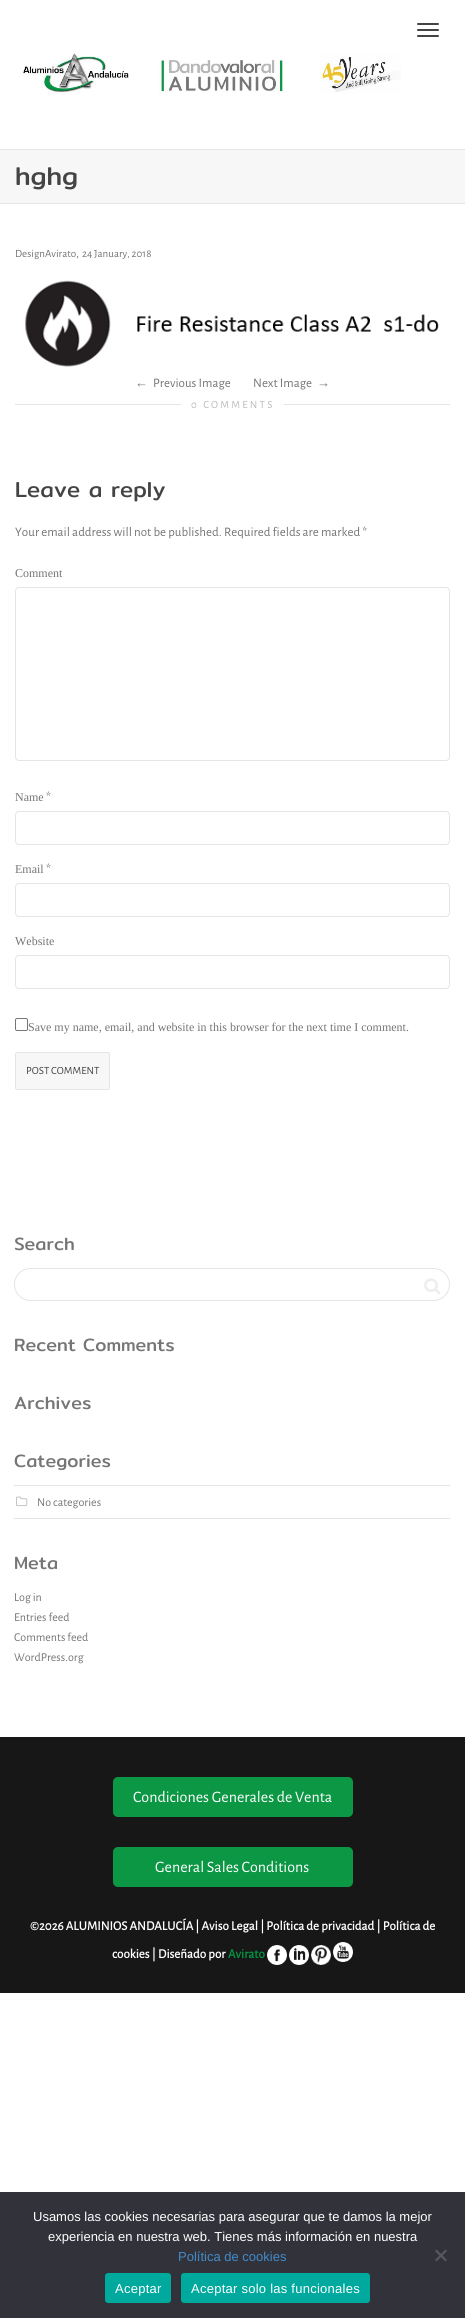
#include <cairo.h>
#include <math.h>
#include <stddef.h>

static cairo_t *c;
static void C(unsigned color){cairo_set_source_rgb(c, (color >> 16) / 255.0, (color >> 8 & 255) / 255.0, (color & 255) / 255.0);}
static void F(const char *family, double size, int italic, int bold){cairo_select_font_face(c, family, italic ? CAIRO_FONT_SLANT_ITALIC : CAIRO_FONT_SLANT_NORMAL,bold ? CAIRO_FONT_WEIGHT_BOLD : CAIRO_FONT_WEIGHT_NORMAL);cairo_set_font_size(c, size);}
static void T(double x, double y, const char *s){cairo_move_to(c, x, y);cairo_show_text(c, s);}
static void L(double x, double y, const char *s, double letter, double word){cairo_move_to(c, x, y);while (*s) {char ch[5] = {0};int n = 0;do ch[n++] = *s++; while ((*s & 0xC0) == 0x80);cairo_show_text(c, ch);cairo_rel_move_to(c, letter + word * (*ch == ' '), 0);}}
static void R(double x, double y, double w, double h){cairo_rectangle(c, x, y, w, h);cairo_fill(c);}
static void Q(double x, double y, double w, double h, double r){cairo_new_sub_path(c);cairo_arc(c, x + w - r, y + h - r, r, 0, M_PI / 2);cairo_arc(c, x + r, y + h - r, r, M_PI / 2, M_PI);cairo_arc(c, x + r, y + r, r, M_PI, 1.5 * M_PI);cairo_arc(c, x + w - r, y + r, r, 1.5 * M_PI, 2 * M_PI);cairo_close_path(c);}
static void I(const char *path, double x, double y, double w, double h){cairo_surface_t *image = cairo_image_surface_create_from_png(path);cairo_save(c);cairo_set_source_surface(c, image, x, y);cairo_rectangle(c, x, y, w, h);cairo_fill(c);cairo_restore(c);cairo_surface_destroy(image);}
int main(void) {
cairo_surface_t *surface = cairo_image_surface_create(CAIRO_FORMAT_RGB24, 465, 2318);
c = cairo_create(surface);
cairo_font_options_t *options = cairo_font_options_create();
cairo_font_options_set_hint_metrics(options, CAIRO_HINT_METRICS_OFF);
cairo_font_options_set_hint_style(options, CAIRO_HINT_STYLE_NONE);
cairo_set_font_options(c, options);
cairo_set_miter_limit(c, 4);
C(0xffffff);
cairo_paint(c);
C(0xe5e5e5);
R(0,149,465,1);
C(0x444444);
Q(417,23,22,2,1);
cairo_fill(c);
Q(417,29,22,2,1);
cairo_fill(c);
Q(417,35,22,2,1);
cairo_fill(c);
I("1.png",23,53,378,41);
C(0xf7f7f7);
R(0,150,465,53);
C(0xe5e5e5);
R(0,203,465,1);
F("Mitr",26,0,0);
C(0x444444);
T(15,185,"hghg");
F("Alegreya Sans",11,0,0);
C(0x757575);
T(15,257,"DesignAvirato");
F("Alegreya Sans",13,0,0);
T(76,257,",");
F("Alegreya Sans",11,0,0);
T(82,257,"24 January, 2018");
I("2.png",25,280,414,87);
F("Liberation Serif",13,0,0);
T(135,387,"←");
F("Alegreya Sans",13,0,0);
T(153,387,"Previous Image");
T(253,387,"Next Image");
F("Liberation Serif",13,0,0);
T(317,387,"→");
C(0xe5e5e5);
R(15,404,435,1);
C(0xffffff);
Q(181,397,103,15,2);
cairo_fill(c);
F("Alegreya Sans",11,0,0);
C(0xbbbbbb);
L(191,408,"0 COMMENTS",2.25,0);
F("Mitr",22,0,0);
C(0x444444);
T(15,497,"Leave a reply");
F("Alegreya Sans",13,0,0);
C(0x757575);
T(15,536,"Your email address will not be published. Required fields are marked *");
F("Liberation Serif",12,0,0);
T(15,577,"Comment");
Q(15.5,587.5,434,173,3.5);
C(0xe5e5e5);
cairo_set_line_width(c,1);
cairo_stroke(c);
C(0x757575);
T(15,801,"Name");
F("Alegreya Sans",13,0,0);
T(46,801,"*");
Q(15.5,811.5,434,33,3.5);
C(0xe5e5e5);
cairo_stroke(c);
F("Liberation Serif",12,0,0);
C(0x757575);
T(15,873,"Email");
F("Alegreya Sans",13,0,0);
T(46,873,"*");
Q(15.5,883.5,434,33,3.5);
C(0xe5e5e5);
cairo_stroke(c);
F("Liberation Serif",12,0,0);
C(0x757575);
T(15,945,"Website");
Q(15.5,955.5,434,33,3.5);
C(0xe5e5e5);
cairo_stroke(c);
Q(15.5,1018.5,12,12,1.5);
C(0x767676);
cairo_stroke(c);
C(0x757575);
T(28,1031,"Save my name, email, and website in this browser for the next time I comment.");
C(0xf7f7f7);
Q(15.5,1052.5,94,37,1.5);
cairo_fill_preserve(c);
C(0xe5e5e5);
cairo_stroke(c);
F("Alegreya Sans",11,0,0);
C(0x444444);
T(26,1074,"POST COMMENT");
F("Mitr",18,0,0);
C(0x757575);
T(14,1250,"Search");
Q(14.5,1268.5,435,32,16);
C(0xe5e5e5);
cairo_stroke(c);
I("3.png",424,1278,17,17);
C(0x757575);
T(14,1351,"Recent Comments");
T(14,1409,"Archives");
T(14,1467,"Categories");
C(0xe5e5e5);
R(14,1485,436,1);
R(14,1518,436,1);
I("4.png",16,1496,12,11);
F("Alegreya Sans",12,0,0);
C(0x757575);
T(37,1506,"No categories");
F("Mitr",18,0,0);
T(14,1569,"Meta");
F("Alegreya Sans",12,0,0);
T(14,1601,"Log in");
T(14,1621,"Entries feed");
T(14,1641,"Comments feed");
T(14,1661,"WordPress.org");
C(0x171717);
R(0,1737,465,256);
C(0x0c9744);
Q(113,1777,240,40,5);
cairo_fill(c);
F("Alegreya Sans",16,0,0);
C(0xffffff);
T(133,1802,"Condiciones Generales de Venta");
C(0x0c9744);
Q(113,1847,240,40,5);
cairo_fill(c);
C(0xffffff);
T(155,1872,"General Sales Conditions");
F("Alegreya Sans",13,0,1);
T(30,1930,"©2026 ALUMINIOS ANDALUCÍA | Aviso Legal | Política de privacidad | Política de");
T(112,1958,"cookies | Diseñado por");
C(0x009744);
T(228,1958,"Avirato");
I("5.png",267,1945,20,20);
I("6.png",289,1945,20,20);
I("7.png",311,1945,20,20);
I("8.png",333,1942,20,20);
C(0x32323a);
R(0,2192,465,126);
F("Liberation Sans",13,0,0);
C(0xffffff);
T(33,2221,"Usamos las cookies necesarias para asegurar que te damos la mejor");
T(48,2241,"experiencia en nuestra web. Tienes más información en nuestra");
C(0x428bca);
T(178,2261,"Política de cookies");
C(0x59595d);
cairo_new_path(c);
cairo_move_to(c,445.5,2249.5);
cairo_line_to(c,447,2251);
cairo_line_to(c,436.5,2261.5);
cairo_line_to(c,435,2260);
cairo_close_path(c);
cairo_fill(c);
cairo_new_path(c);
cairo_move_to(c,435,2251);
cairo_line_to(c,436.5,2249.5);
cairo_line_to(c,447,2260);
cairo_line_to(c,445.5,2261.5);
cairo_close_path(c);
cairo_fill(c);
C(0x00a99d);
Q(105,2273,66,30,3);
cairo_fill(c);
C(0xffffff);
L(115,2293,"Aceptar",.25,0);
C(0x00a99d);
Q(181,2273,189,30,3);
cairo_fill(c);
C(0xffffff);
L(191,2293,"Aceptar solo las funcionales",.25,0);
cairo_surface_write_to_png(surface, "o.png");
cairo_font_options_destroy(options);
cairo_destroy(c);
cairo_surface_destroy(surface);
return 0;
}
